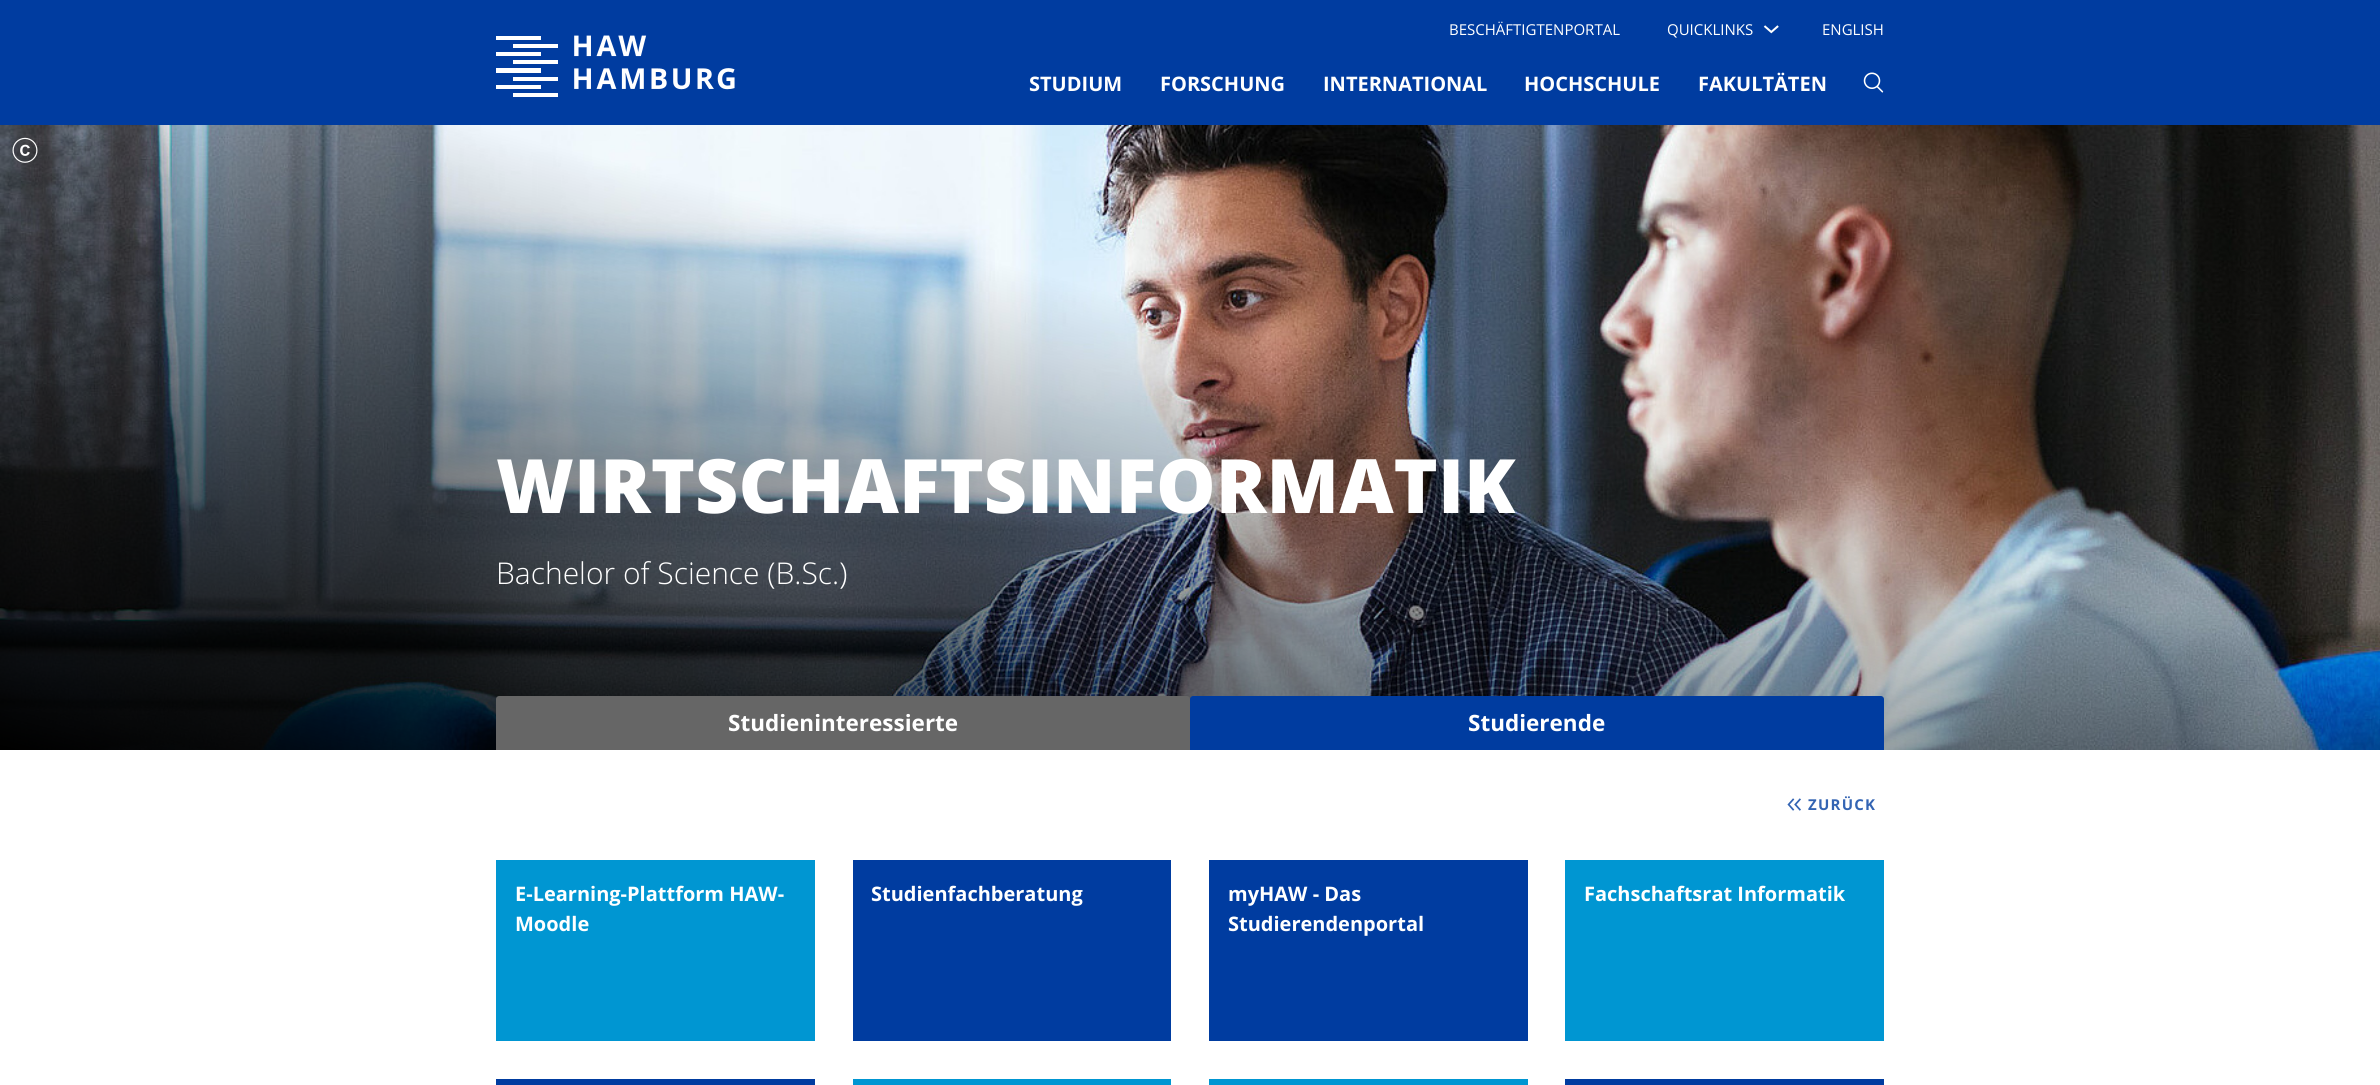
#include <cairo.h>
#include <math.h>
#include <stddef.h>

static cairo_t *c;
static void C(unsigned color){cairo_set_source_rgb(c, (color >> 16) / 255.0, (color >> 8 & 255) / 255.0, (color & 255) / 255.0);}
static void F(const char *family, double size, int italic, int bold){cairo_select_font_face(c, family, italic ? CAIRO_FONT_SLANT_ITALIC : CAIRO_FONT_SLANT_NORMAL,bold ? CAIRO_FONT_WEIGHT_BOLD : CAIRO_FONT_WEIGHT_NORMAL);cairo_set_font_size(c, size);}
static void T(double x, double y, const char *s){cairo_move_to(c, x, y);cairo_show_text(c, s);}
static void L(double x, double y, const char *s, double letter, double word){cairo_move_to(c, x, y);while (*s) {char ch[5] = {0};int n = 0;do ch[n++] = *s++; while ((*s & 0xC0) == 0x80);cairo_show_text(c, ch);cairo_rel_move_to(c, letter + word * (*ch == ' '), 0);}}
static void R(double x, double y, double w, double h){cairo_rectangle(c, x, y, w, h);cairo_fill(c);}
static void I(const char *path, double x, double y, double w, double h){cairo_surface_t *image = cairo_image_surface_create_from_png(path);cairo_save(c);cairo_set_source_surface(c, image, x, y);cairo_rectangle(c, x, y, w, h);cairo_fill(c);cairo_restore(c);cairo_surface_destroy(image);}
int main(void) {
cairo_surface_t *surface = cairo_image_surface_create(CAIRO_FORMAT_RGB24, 2380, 1085);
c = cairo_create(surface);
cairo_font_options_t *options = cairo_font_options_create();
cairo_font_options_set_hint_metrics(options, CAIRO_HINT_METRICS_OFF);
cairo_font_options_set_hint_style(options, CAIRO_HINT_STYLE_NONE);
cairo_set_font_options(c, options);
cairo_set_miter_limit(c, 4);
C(0xffffff);
cairo_paint(c);
C(0x003ca0);
R(0,0,2380,125);
I("1.png",496,35,239,62);
F("Open Sans",15,0,0);
C(0xffffff);
T(1449,35,"BESCHÄFTIGTENPORTAL");
T(1667,35,"QUICKLINKS");
I("2.png",1763,25,16,9);
T(1822,35,"ENGLISH");
F("Open Sans",20,0,1);
T(1029,91,"STUDIUM");
T(1160,91,"FORSCHUNG");
T(1323,91,"INTERNATIONAL");
T(1524,91,"HOCHSCHULE");
T(1698,91,"FAKULTÄTEN");
I("3.png",1863,72,21,21);
I("4.png",0,125,2380,625);
I("5.png",12,137,26,26);
F("Open Sans ExtraBold",75,0,0);
T(496,513,"WIRTSCHAFTSINFORMATIK");
F("Open Sans Light",30,0,0);
T(496,584,"Bachelor of Science (B.Sc.)");
C(0x666666);
cairo_new_path(c);
cairo_move_to(c,499,696);
cairo_line_to(c,1187,696);
cairo_curve_to(c,1188.5,696,1190,697.5,1190,699);
cairo_line_to(c,1190,750);
cairo_line_to(c,496,750);
cairo_line_to(c,496,699);
cairo_curve_to(c,496,697.5,497.5,696,499,696);
cairo_close_path(c);
cairo_fill(c);
F("Open Sans",22.5,0,1);
C(0xffffff);
T(728,731,"Studieninteressierte");
C(0x003ca0);
cairo_new_path(c);
cairo_move_to(c,1193,696);
cairo_line_to(c,1881,696);
cairo_curve_to(c,1882.5,696,1884,697.5,1884,699);
cairo_line_to(c,1884,750);
cairo_line_to(c,1190,750);
cairo_line_to(c,1190,699);
cairo_curve_to(c,1190,697.5,1191.5,696,1193,696);
cairo_close_path(c);
cairo_fill(c);
C(0xffffff);
T(1468,731,"Studierende");
I("6.png",1787,798,14,13);
F("Open Sans",15,0,1);
C(0x3364b3);
L(1808,810,"ZURÜCK",1.25,0);
C(0x0096d2);
R(496,860,319,181);
F("Open Sans",20,0,1);
C(0xffffff);
T(515,901,"E-Learning-Plattform HAW-");
T(515,931,"Moodle");
C(0x003ca0);
R(496,1079,319,6);
R(853,860,318,181);
C(0xffffff);
T(871,901,"Studienfachberatung");
C(0x0096d2);
R(853,1079,318,6);
C(0x003ca0);
R(1209,860,319,181);
C(0xffffff);
T(1228,901,"myHAW - Das");
T(1228,931,"Studierendenportal");
C(0x0096d2);
R(1209,1079,319,6);
R(1565,860,319,181);
C(0xffffff);
T(1584,901,"Fachschaftsrat Informatik");
C(0x003ca0);
R(1565,1079,319,6);
cairo_surface_write_to_png(surface, "o.png");
cairo_font_options_destroy(options);
cairo_destroy(c);
cairo_surface_destroy(surface);
return 0;
}
